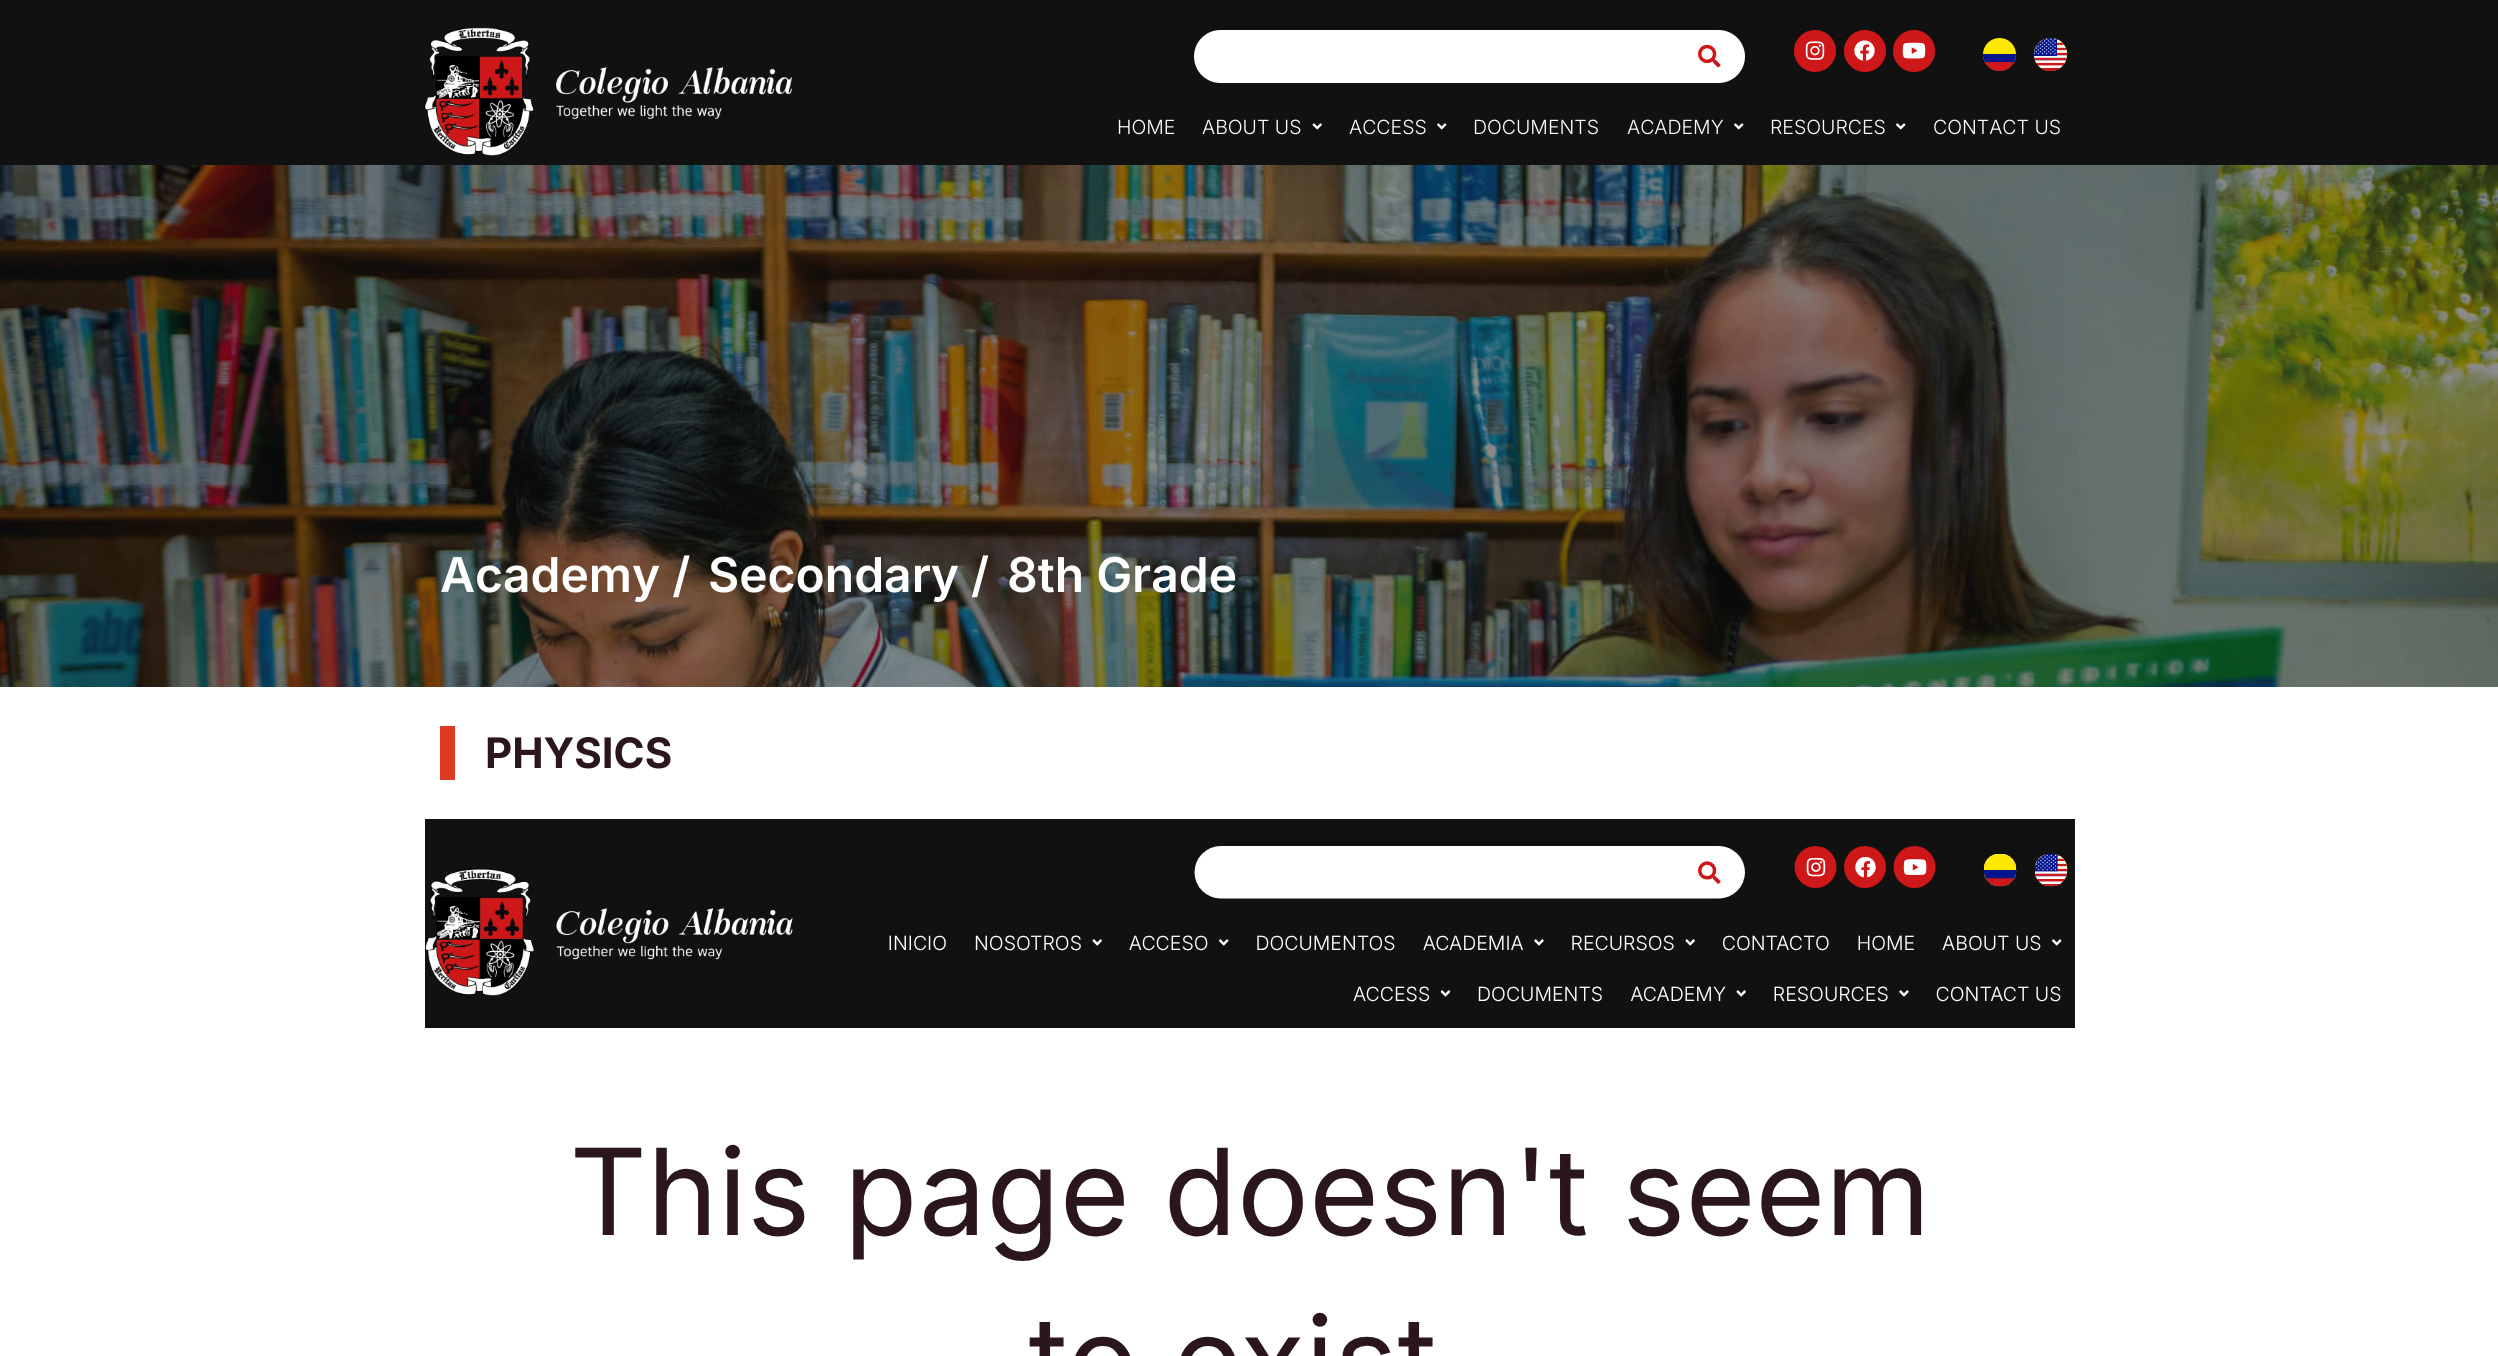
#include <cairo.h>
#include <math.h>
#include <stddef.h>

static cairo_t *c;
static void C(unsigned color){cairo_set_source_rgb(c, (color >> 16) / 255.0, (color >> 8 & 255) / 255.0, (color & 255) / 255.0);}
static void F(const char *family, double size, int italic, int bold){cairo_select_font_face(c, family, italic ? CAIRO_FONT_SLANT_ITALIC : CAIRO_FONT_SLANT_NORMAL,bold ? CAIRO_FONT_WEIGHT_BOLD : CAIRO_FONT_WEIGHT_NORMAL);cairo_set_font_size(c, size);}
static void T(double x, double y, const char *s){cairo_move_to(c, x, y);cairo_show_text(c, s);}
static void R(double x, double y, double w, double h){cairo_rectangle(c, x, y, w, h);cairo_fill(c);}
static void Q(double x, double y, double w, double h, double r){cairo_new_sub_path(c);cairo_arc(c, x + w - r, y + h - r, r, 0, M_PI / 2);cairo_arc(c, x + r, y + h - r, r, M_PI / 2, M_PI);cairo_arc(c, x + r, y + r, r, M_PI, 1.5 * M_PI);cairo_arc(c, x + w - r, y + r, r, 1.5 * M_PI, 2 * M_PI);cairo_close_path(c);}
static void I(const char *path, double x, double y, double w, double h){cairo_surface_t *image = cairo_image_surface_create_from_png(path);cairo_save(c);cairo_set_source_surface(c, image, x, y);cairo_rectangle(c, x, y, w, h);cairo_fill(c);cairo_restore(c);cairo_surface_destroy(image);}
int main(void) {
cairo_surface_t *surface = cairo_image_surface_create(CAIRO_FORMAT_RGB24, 2498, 1356);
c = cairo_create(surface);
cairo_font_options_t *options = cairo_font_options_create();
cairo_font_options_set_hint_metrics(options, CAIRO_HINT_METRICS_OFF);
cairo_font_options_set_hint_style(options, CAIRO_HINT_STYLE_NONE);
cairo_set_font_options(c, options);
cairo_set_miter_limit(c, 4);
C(0xffffff);
cairo_paint(c);
C(0x111111);
R(0,0,2498,165);
I("1.png",424,27,368,129);
C(0xffffff);
Q(1194,30,551,53,26.5);
cairo_fill(c);
I("2.png",1698,44,23,24);
C(0xcd1718);
cairo_arc(c,1815,51,21,0,2 * M_PI);
cairo_fill(c);
I("3.png",1805,41,20,19);
cairo_arc(c,1865,51,21,0,2 * M_PI);
cairo_fill(c);
I("4.png",1854,40,21,21);
cairo_arc(c,1914,51,21,0,2 * M_PI);
cairo_fill(c);
I("5.png",1902,42,24,17);
C(0xffe800);
cairo_arc(c,1999.5,54.5,16.5,0,2 * M_PI);
cairo_fill(c);
cairo_save(c);
Q(1983,38,33,33,16.5);
cairo_clip(c);
C(0x00148e);
cairo_new_path(c);
cairo_move_to(c,1983,54);
cairo_line_to(c,2016,54);
cairo_line_to(c,2016,54.5);
cairo_curve_to(c,2016,63.5,2008.5,71,1999.5,71);
cairo_curve_to(c,1990.5,71,1983,63.5,1983,54.5);
cairo_close_path(c);
cairo_fill(c);
C(0xcd1718);
R(1984,62,31,9);
cairo_restore(c);
I("6.png",2034,38,33,33);
F("Inter Light",19.5,0,0);
C(0xffffff);
T(1117,134,"HOME");
T(1202,134,"ABOUT US");
I("7.png",1312,123,10,7);
T(1349,134,"ACCESS");
I("8.png",1437,123,10,7);
T(1473,134,"DOCUMENTS");
T(1627,134,"ACADEMY");
I("8.png",1734,123,10,7);
T(1770,134,"RESOURCES");
I("8.png",1896,123,10,7);
T(1933,134,"CONTACT US");
I("9.png",0,165,2498,522);
F("Inter SemiBold",48,0,0);
T(440,592,"Academy /");
T(708,592,"Secondary /");
T(1007,592,"8th Grade");
C(0xdf3a26);
R(440,726,15,54);
F("Inter",42,0,1);
C(0x2b161b);
T(485,768,"PHYSICS");
I("10.png",425,819,1650,537);
cairo_surface_write_to_png(surface, "o.png");
cairo_font_options_destroy(options);
cairo_destroy(c);
cairo_surface_destroy(surface);
return 0;
}
